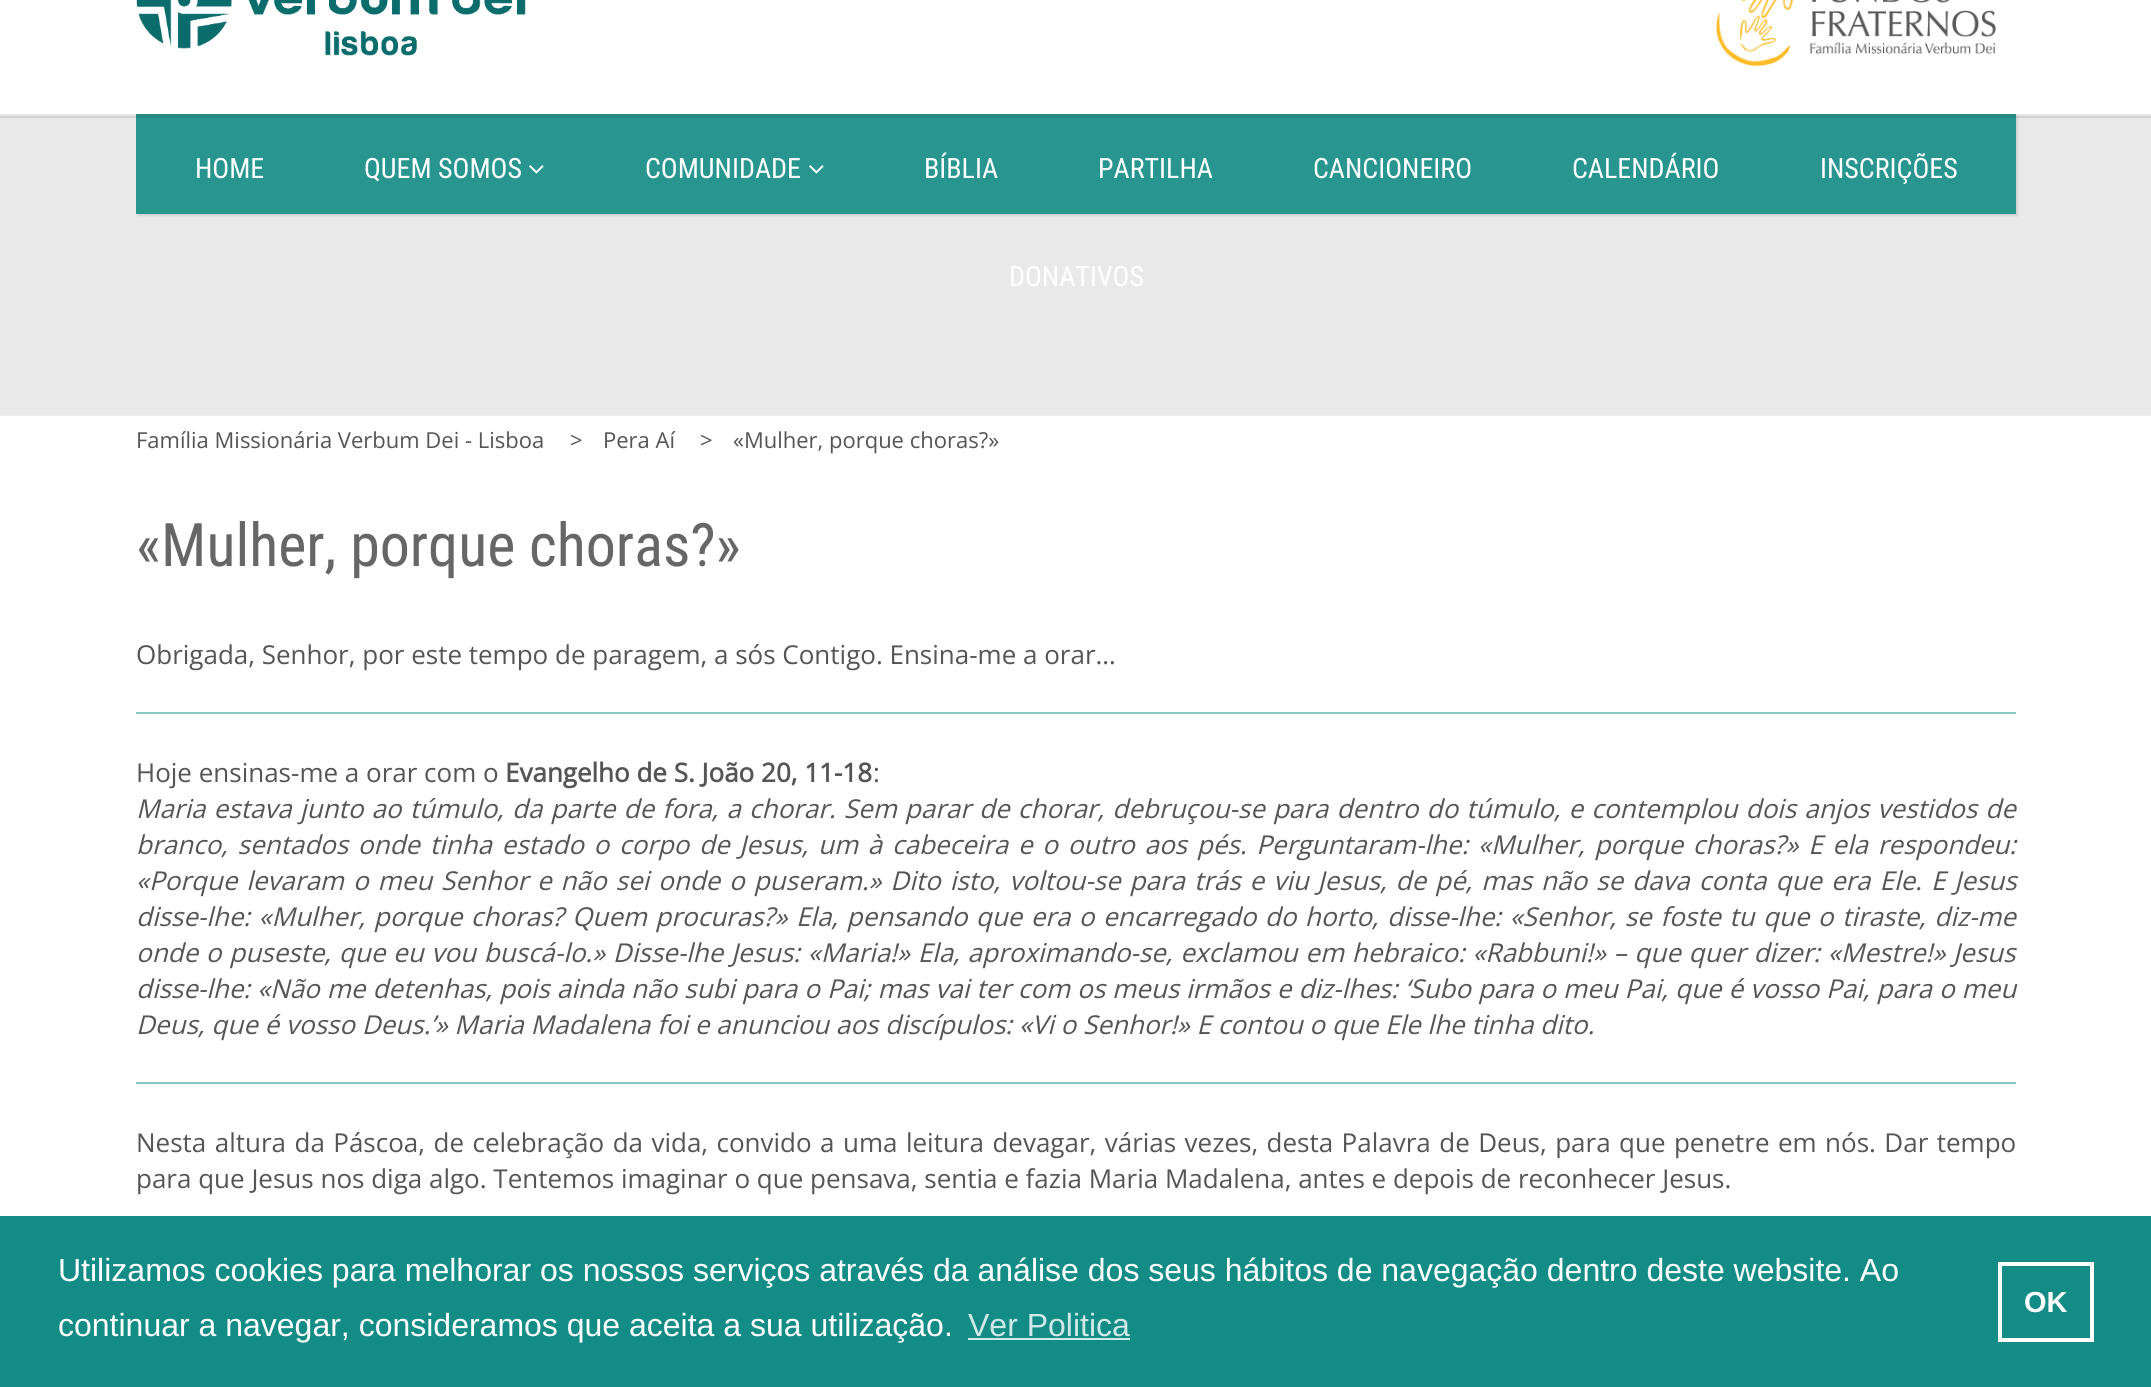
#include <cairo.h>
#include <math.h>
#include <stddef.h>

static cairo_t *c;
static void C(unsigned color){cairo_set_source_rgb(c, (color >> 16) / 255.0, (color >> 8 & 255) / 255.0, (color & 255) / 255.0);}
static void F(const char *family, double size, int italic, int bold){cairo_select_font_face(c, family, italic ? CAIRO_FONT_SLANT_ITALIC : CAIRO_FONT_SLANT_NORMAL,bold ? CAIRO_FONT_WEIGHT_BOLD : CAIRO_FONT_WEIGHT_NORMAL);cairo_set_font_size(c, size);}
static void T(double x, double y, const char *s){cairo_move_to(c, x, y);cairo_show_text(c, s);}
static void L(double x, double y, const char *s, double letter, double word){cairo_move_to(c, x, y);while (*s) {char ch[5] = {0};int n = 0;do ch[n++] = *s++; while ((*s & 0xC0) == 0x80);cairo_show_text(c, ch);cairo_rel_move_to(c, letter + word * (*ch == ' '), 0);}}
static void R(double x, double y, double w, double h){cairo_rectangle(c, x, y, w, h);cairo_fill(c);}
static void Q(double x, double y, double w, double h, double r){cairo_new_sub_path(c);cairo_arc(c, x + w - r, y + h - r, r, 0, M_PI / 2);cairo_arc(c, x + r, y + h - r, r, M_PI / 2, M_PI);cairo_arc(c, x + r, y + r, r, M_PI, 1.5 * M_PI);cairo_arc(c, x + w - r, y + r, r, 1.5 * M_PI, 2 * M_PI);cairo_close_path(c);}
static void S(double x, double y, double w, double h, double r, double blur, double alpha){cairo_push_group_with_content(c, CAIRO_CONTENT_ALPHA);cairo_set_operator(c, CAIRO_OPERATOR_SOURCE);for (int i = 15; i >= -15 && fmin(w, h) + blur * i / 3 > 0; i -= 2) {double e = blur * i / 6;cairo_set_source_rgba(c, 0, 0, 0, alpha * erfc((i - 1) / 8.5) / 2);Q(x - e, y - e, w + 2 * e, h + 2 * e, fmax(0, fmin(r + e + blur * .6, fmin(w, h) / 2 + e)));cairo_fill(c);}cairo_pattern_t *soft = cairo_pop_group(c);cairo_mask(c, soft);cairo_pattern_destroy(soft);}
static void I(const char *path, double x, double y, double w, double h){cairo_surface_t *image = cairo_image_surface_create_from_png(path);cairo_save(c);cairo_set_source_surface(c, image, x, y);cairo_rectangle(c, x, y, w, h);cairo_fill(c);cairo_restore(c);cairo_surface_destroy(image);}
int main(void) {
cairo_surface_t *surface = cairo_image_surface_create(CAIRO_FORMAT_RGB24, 2151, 1387);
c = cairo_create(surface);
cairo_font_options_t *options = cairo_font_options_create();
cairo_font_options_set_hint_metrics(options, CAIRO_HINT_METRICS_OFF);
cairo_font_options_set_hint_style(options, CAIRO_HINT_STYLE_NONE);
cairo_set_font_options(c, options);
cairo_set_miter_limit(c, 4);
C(0xffffff);
cairo_paint(c);
C(0x2b9891);
R(136,114,1880,2);
C(0xe9e9e9);
R(0,116,2151,298);
C(0x28958f);
R(136,116,1880,98);
cairo_save(c);
cairo_set_fill_rule(c,CAIRO_FILL_RULE_EVEN_ODD);
cairo_new_path(c);
cairo_move_to(c,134,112);
cairo_line_to(c,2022,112);
cairo_line_to(c,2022,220);
cairo_line_to(c,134,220);
cairo_close_path(c);
cairo_move_to(c,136,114);
cairo_line_to(c,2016,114);
cairo_line_to(c,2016,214);
cairo_line_to(c,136,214);
cairo_close_path(c);
cairo_clip(c);
C(0x000000);
S(138,116,1880,100,0,1,.1);
cairo_restore(c);
cairo_set_source_rgba(c,0,0,0,0.1);
R(0,114,2151,4);
I("1.png",136,0,390,56);
I("2.png",1716,0,280,66);
F("Roboto Condensed",28,0,0);
C(0xffffff);
T(195,178,"HOME");
T(364,178,"QUEM SOMOS");
I("3.png",529,165,15,9);
T(645,178,"COMUNIDADE");
I("3.png",809,165,15,9);
T(924,178,"BÍBLIA");
T(1098,178,"PARTILHA");
T(1313,178,"CANCIONEIRO");
T(1572,178,"CALENDÁRIO");
T(1820,178,"INSCRIÇÕES");
T(1009,286,"DONATIVOS");
C(0xeeeeee);
R(0,414,2151,2);
F("Open Sans",22,0,0);
C(0x555555);
T(136,448,"Família Missionária Verbum Dei - Lisboa");
T(570,448,">");
T(603,448,"Pera Aí");
T(700,448,">");
T(733,448,"«Mulher, porque choras?»");
F("Roboto Condensed",60,0,0);
C(0x666666);
T(136,566,"«Mulher, porque choras?»");
F("Open Sans",26,0,0);
C(0x555555);
T(136,664,"Obrigada, Senhor, por este tempo de paragem, a sós Contigo. Ensina-me a orar…");
C(0x89c6c2);
R(136,712,1880,2);
C(0x555555);
T(136,782,"Hoje ensinas-me a orar com o");
F("Open Sans",26,0,1);
T(505,782,"Evangelho de S. João 20, 11-18");
F("Open Sans",26,0,0);
T(873,782,":");
F("Open Sans",26,1,0);
L(136,818,"Maria estava junto ao túmulo, da parte de fora, a chorar. Sem parar de chorar, debruçou-se para dentro do túmulo, e contemplou dois anjos vestidos de",0,1.4);
L(136,854,"branco, sentados onde tinha estado o corpo de Jesus, um à cabeceira e o outro aos pés. Perguntaram-lhe: «Mulher, porque choras?» E ela respondeu:",0,3);
L(136,890,"«Porque levaram o meu Senhor e não sei onde o puseram.» Dito isto, voltou-se para trás e viu Jesus, de pé, mas não se dava conta que era Ele. E Jesus",0,2.2);
L(136,926,"disse-lhe: «Mulher, porque choras? Quem procuras?» Ela, pensando que era o encarregado do horto, disse-lhe: «Senhor, se foste tu que o tiraste, diz-me",0,1.7);
L(136,962,"onde o puseste, que eu vou buscá-lo.» Disse-lhe Jesus: «Maria!» Ela, aproximando-se, exclamou em hebraico: «Rabbuni!» – que quer dizer: «Mestre!» Jesus",0,1);
L(136,998,"disse-lhe: «Não me detenhas, pois ainda não subi para o Pai; mas vai ter com os meus irmãos e diz-lhes: ‘Subo para o meu Pai, que é vosso Pai, para o meu",0,.25);
T(136,1034,"Deus, que é vosso Deus.’» Maria Madalena foi e anunciou aos discípulos: «Vi o Senhor!» E contou o que Ele lhe tinha dito.");
C(0x89c6c2);
R(136,1082,1880,2);
F("Open Sans",26,0,0);
C(0x555555);
L(136,1152,"Nesta altura da Páscoa, de celebração da vida, convido a uma leitura devagar, várias vezes, desta Palavra de Deus, para que penetre em nós. Dar tempo",0,1.7);
T(136,1188,"para que Jesus nos diga algo. Tentemos imaginar o que pensava, sentia e fazia Maria Madalena, antes e depois de reconhecer Jesus.");
C(0x138c85);
R(0,1216,2151,171);
F("Liberation Sans",32,0,0);
C(0xffffff);
T(58,1281,"Utilizamos cookies para melhorar os nossos serviços através da análise dos seus hábitos de navegação dentro deste website. Ao");
T(58,1336,"continuar a navegar, consideramos que aceita a sua utilização.");
C(0xd0e8e7);
T(968,1336,"Ver Politica");
R(968,1338,162,2);
cairo_rectangle(c,2000,1264,92,76);
C(0xffffff);
cairo_set_line_width(c,4);
cairo_stroke(c);
F("Liberation Sans",29,0,1);
T(2024,1312,"OK");
cairo_surface_write_to_png(surface, "o.png");
cairo_font_options_destroy(options);
cairo_destroy(c);
cairo_surface_destroy(surface);
return 0;
}
